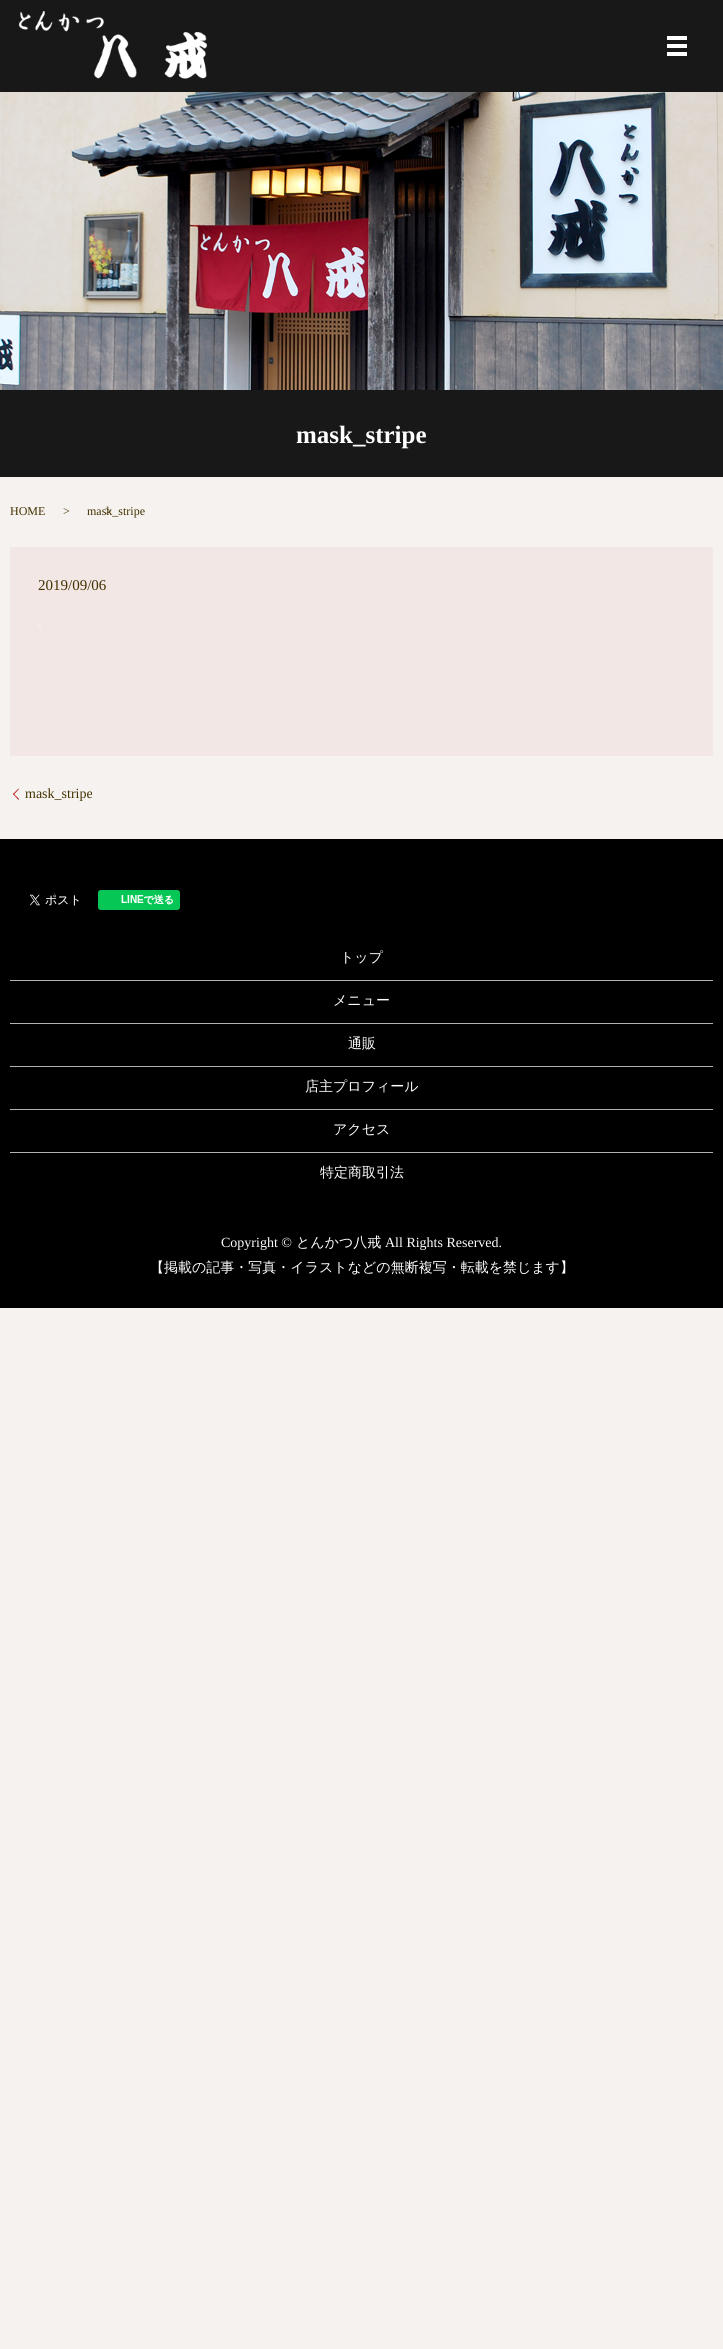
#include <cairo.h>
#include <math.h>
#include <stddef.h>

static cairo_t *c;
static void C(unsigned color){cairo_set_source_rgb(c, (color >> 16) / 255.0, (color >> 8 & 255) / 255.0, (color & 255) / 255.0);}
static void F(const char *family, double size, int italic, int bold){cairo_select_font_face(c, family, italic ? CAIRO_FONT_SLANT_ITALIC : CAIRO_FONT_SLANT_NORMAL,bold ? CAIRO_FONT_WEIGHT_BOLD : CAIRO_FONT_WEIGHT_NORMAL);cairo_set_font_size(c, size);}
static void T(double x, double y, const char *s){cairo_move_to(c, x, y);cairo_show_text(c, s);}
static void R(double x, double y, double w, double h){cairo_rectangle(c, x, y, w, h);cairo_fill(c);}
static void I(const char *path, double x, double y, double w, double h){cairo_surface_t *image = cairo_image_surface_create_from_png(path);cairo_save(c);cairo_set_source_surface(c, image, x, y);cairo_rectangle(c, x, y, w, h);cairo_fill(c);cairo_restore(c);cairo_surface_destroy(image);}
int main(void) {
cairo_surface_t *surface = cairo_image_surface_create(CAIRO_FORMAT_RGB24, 723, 2349);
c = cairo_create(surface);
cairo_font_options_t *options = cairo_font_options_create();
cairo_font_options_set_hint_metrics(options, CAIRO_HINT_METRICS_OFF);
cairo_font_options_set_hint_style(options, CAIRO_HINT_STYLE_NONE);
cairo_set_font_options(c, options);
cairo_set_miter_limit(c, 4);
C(0xf5f2ef);
cairo_paint(c);
C(0x181818);
R(0,0,723,92);
I("1.png",18,11,189,68);
C(0xffffff);
R(667,36,20,4);
R(667,44,20,4);
R(667,52,20,4);
I("2.png",0,92,723,298);
C(0x181818);
R(0,390,723,87);
F("Liberation Serif",25,0,1);
C(0xffffff);
T(296,443,"mask_stripe");
F("Liberation Serif",12,0,0);
C(0x433100);
T(10,515,"HOME");
T(63,515,">");
T(105,515,">");
T(87,515,"mask_stripe");
C(0xf2e7e5);
R(10,547,703,209);
F("Liberation Serif",15,0,0);
C(0x433100);
T(38,590,"2019/09/06");
I("3.png",38,624,4,4);
C(0xbf1c1c);
cairo_new_path(c);
cairo_move_to(c,13,794);
cairo_line_to(c,18.5,788.5);
cairo_line_to(c,19,789);
cairo_line_to(c,13.5,795);
cairo_close_path(c);
cairo_fill(c);
F("Liberation Serif",14,0,0);
C(0x433100);
T(25,798,"mask_stripe");
C(0xbf1c1c);
cairo_new_path(c);
cairo_move_to(c,18.5,800);
cairo_line_to(c,13,794);
cairo_line_to(c,13.5,793.5);
cairo_line_to(c,19,799);
cairo_close_path(c);
cairo_fill(c);
C(0x000000);
R(0,839,723,469);
I("4.png",29,894,50,12);
I("5.png",98,890,82,20);
F("WenQuanYi Zen Hei Medium",14,0,0);
C(0xffffff);
T(340,962,"トップ");
C(0xb3b3b3);
R(10,980,703,1);
C(0xffffff);
T(333,1005,"メニュー");
C(0xb3b3b3);
R(10,1023,703,1);
C(0xffffff);
T(348,1048,"通販");
C(0xb3b3b3);
R(10,1066,703,1);
C(0xffffff);
T(305,1091,"店主プロフィール");
C(0xb3b3b3);
R(10,1109,703,1);
C(0xffffff);
T(333,1134,"アクセス");
C(0xb3b3b3);
R(10,1152,703,1);
C(0xffffff);
T(320,1177,"特定商取引法");
F("Liberation Serif",14,0,0);
T(221,1247,"Copyright ©");
F("WenQuanYi Zen Hei Medium",14,0,0);
T(296,1247,"とんかつ八戒");
F("Liberation Serif",14,0,0);
T(385,1247,"All Rights Reserved.");
F("WenQuanYi Zen Hei Medium",14,0,0);
T(150,1272,"【掲載の記事・写真・イラストなどの無断複写・転載を禁じます】");
cairo_surface_write_to_png(surface, "o.png");
cairo_font_options_destroy(options);
cairo_destroy(c);
cairo_surface_destroy(surface);
return 0;
}
